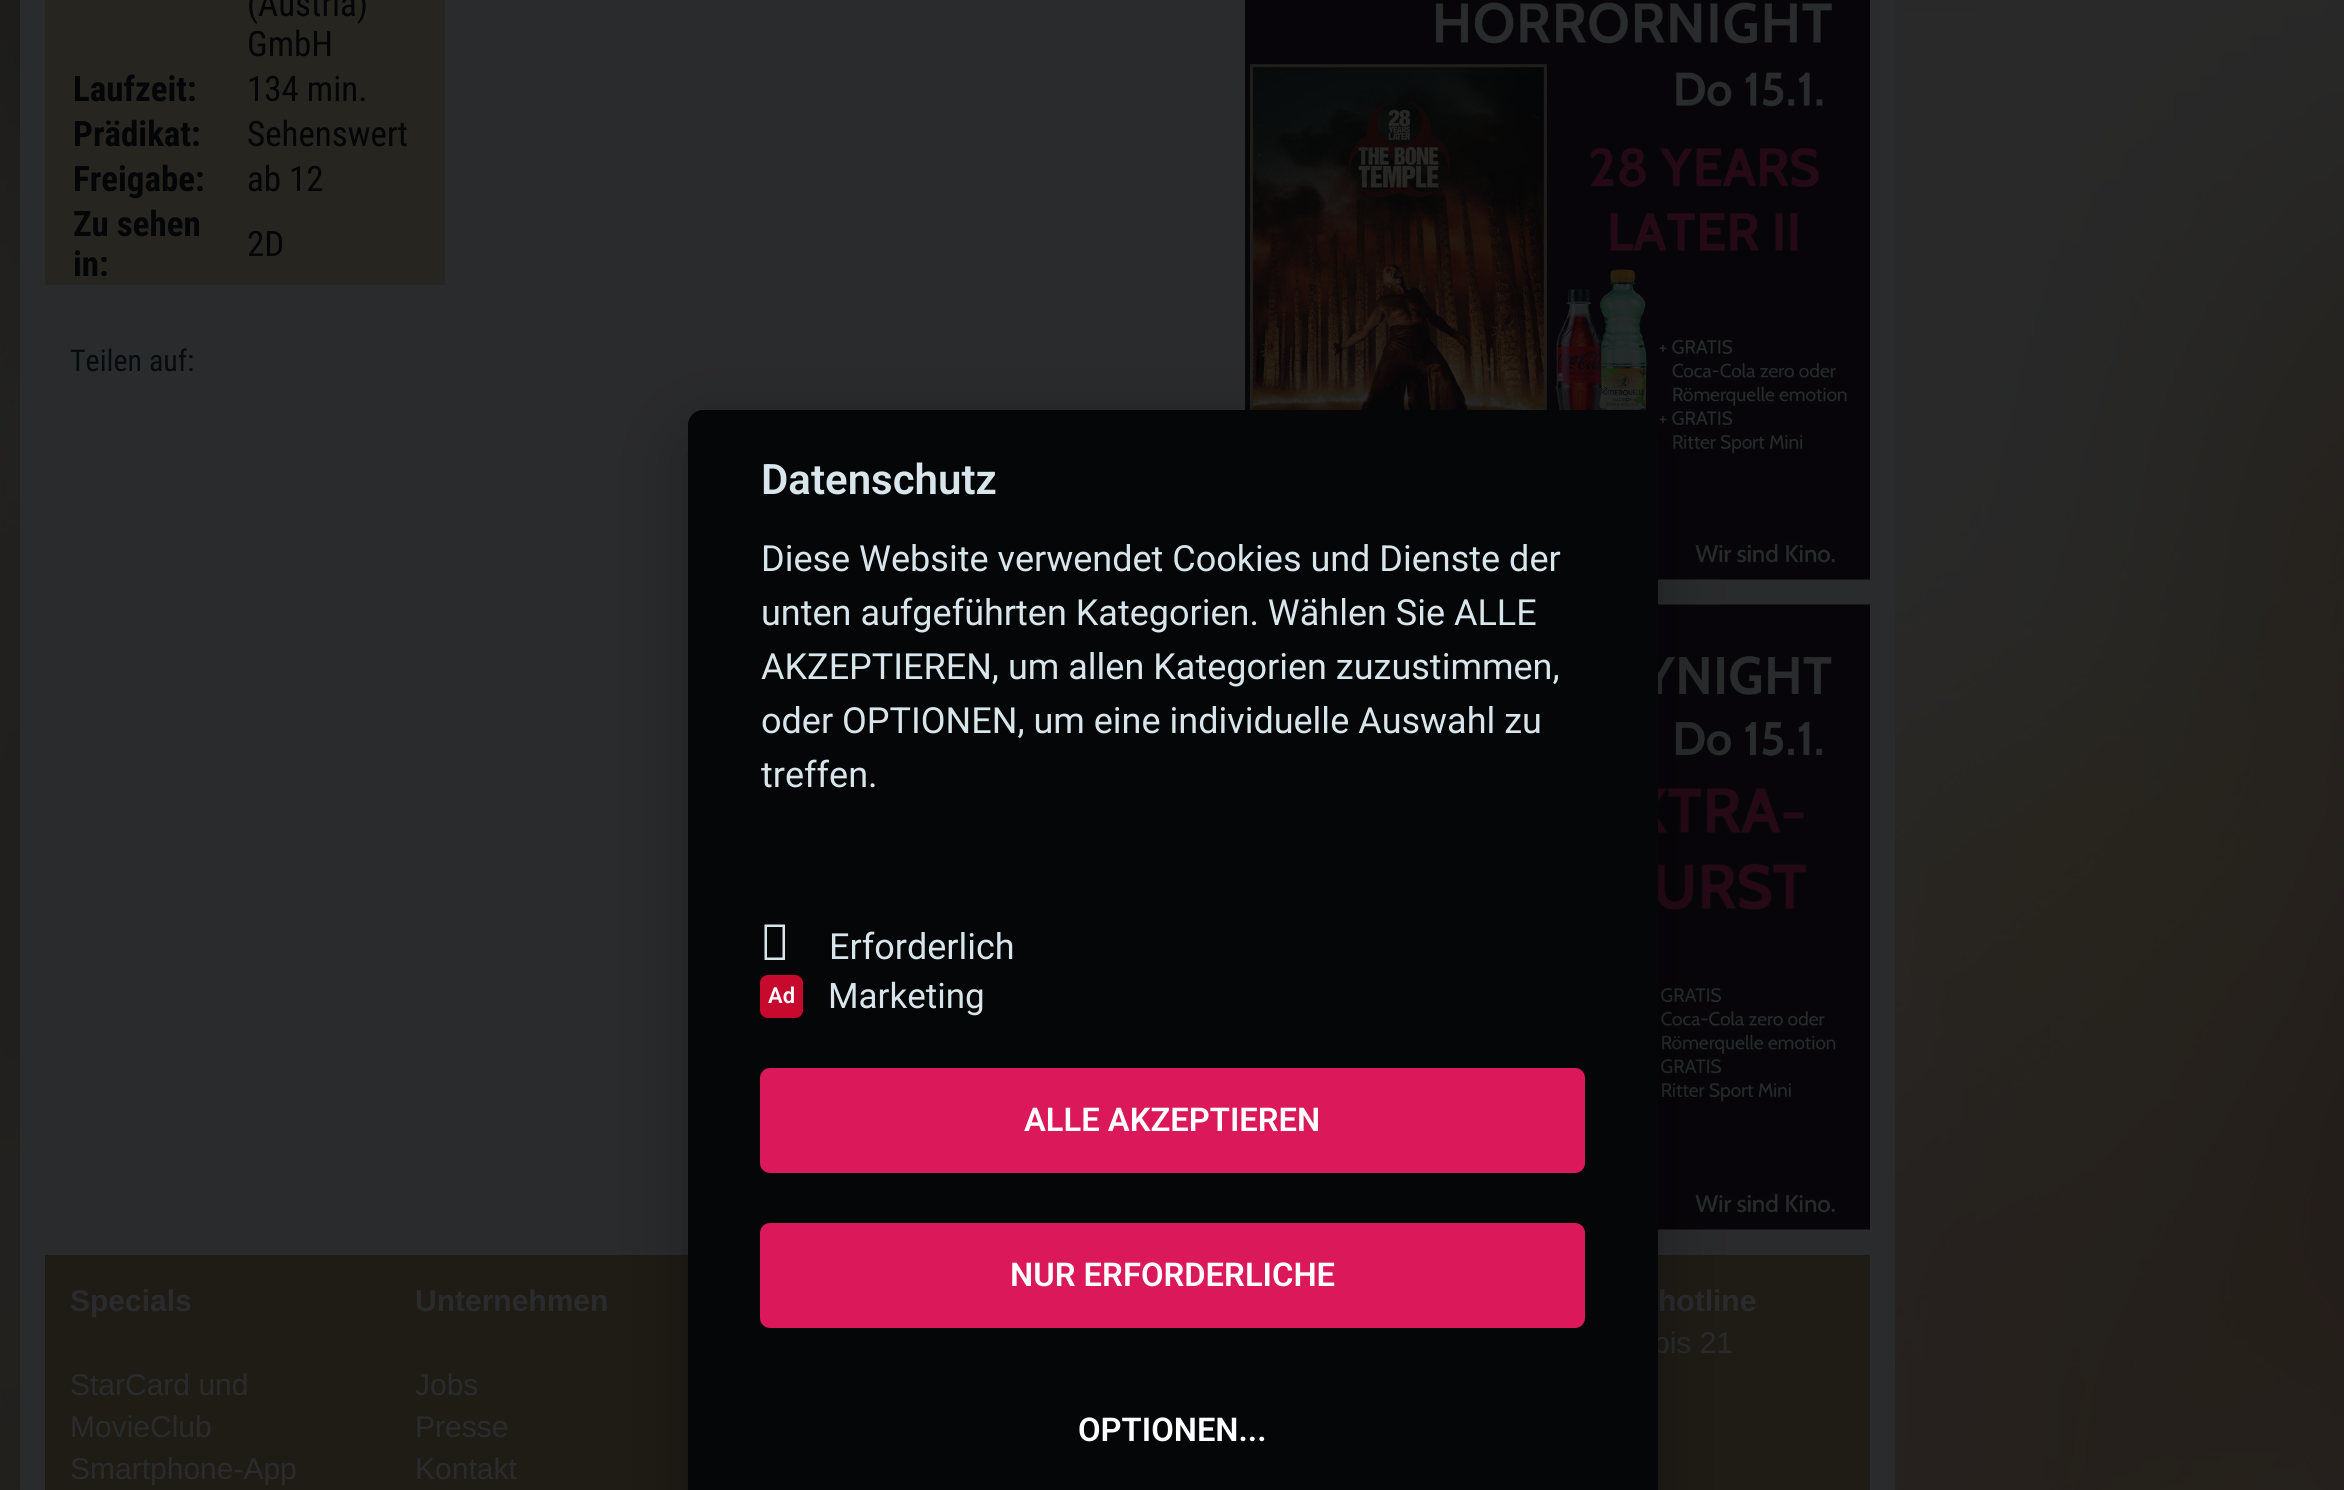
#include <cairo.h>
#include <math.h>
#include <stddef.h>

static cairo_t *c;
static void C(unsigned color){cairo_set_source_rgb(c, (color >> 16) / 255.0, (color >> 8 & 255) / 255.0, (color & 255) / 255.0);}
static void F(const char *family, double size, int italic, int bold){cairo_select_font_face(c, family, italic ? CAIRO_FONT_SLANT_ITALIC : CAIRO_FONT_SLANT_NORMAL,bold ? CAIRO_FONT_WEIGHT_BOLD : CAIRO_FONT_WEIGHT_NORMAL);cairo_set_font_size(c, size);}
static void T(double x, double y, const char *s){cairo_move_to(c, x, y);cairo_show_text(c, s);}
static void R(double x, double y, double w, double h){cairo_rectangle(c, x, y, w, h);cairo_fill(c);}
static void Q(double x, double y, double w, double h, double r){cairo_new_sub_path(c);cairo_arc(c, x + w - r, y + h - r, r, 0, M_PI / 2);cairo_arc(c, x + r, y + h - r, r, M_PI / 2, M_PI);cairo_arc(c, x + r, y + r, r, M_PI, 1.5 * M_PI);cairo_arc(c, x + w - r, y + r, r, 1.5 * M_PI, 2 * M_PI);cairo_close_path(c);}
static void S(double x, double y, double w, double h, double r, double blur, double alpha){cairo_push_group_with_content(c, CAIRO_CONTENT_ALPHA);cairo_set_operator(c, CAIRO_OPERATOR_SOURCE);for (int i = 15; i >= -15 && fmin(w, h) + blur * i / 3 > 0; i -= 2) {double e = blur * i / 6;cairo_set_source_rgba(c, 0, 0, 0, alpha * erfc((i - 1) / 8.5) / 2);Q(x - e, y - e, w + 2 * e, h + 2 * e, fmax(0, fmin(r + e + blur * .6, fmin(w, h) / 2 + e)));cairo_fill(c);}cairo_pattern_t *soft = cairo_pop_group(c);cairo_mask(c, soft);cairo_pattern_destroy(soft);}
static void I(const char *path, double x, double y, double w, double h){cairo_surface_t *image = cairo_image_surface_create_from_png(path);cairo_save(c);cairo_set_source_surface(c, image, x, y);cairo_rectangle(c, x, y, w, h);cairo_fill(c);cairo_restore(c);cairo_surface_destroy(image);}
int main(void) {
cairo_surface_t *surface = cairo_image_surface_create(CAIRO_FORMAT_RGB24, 2344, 1490);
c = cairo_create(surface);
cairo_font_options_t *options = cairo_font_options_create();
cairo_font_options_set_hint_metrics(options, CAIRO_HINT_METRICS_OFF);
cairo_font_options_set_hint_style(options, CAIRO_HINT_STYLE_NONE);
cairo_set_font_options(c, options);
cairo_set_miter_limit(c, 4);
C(0xffffff);
cairo_paint(c);
I("1.png",0,0,2344,1490);
C(0x2a2b2d);
R(20,0,1875,1490);
C(0x27251f);
R(45,0,400,285);
F("Roboto Condensed",35,0,0);
C(0x030507);
T(247,16,"(Austria)");
T(247,56,"GmbH");
F("Roboto Condensed",35,0,1);
T(73,101,"Laufzeit:");
F("Roboto Condensed",35,0,0);
T(247,101,"134 min.");
F("Roboto Condensed",35,0,1);
T(73,146,"Prädikat:");
F("Roboto Condensed",35,0,0);
T(247,146,"Sehenswert");
F("Roboto Condensed",35,0,1);
T(73,191,"Freigabe:");
F("Roboto Condensed",35,0,0);
T(247,191,"ab 12");
F("Roboto Condensed",35,0,1);
T(73,236,"Zu sehen");
T(73,276,"in:");
F("Roboto Condensed",35,0,0);
T(247,256,"2D");
F("Roboto Condensed",30,0,0);
C(0x060b10);
T(70,371,"Teilen auf:");
I("2.png",1245,0,625,580);
I("3.png",1658,604,212,626);
C(0x1f1c16);
R(45,1255,1825,235);
F("Liberation Sans",30,0,1);
C(0x2a2b2d);
T(70,1311,"Specials");
F("Liberation Sans",30,0,0);
T(70,1395,"StarCard und");
T(70,1437,"MovieClub");
T(70,1479,"Smartphone-App");
F("Liberation Sans",30,0,1);
T(415,1311,"Unternehmen");
F("Liberation Sans",30,0,0);
T(415,1395,"Jobs");
T(415,1437,"Presse");
T(415,1479,"Kontakt");
F("Liberation Sans",30,0,1);
T(1658,1311,"hotline");
F("Liberation Sans",30,0,0);
T(1653,1353,"bis 21");
C(0x020203);
S(688,435,970,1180,15,37.5,.28);
C(0x050607);
Q(688,410,970,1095,15);
cairo_fill(c);
F("Roboto SemiBold",42,0,0);
C(0xd8e5ea);
T(761,494,"Datenschutz");
F("Roboto",36,0,0);
T(761,571,"Diese Website verwendet Cookies und Dienste der");
T(761,625,"unten aufgeführten Kategorien. Wählen Sie ALLE");
T(761,679,"AKZEPTIEREN, um allen Kategorien zuzustimmen,");
T(761,733,"oder OPTIONEN, um eine individuelle Auswahl zu");
T(761,787,"treffen.");
cairo_new_path(c);
cairo_move_to(c,764.5,960);
cairo_line_to(c,764.5,924.5);
cairo_line_to(c,785,924.5);
cairo_line_to(c,785,960);
cairo_close_path(c);
cairo_move_to(c,767,957.5);
cairo_line_to(c,782.5,957.5);
cairo_line_to(c,782.5,927);
cairo_line_to(c,767,927);
cairo_close_path(c);
cairo_fill(c);
T(829,959,"Erforderlich");
C(0xc7092e);
Q(760,975,43,43,8);
cairo_fill(c);
F("Roboto SemiBold",22,0,0);
C(0xffffff);
T(768,1003,"Ad");
F("Roboto",35,0,0);
C(0xd8e5ea);
T(828,1008,"Marketing");
C(0xda185a);
Q(760,1068,825,105,10);
cairo_fill(c);
F("Roboto SemiBold",32.75,0,0);
C(0xffffff);
T(1024,1131,"ALLE AKZEPTIEREN");
C(0xda185a);
Q(760,1223,825,105,10);
cairo_fill(c);
C(0xffffff);
T(1010,1286,"NUR ERFORDERLICHE");
T(1078,1441,"OPTIONEN...");
cairo_surface_write_to_png(surface, "o.png");
cairo_font_options_destroy(options);
cairo_destroy(c);
cairo_surface_destroy(surface);
return 0;
}
